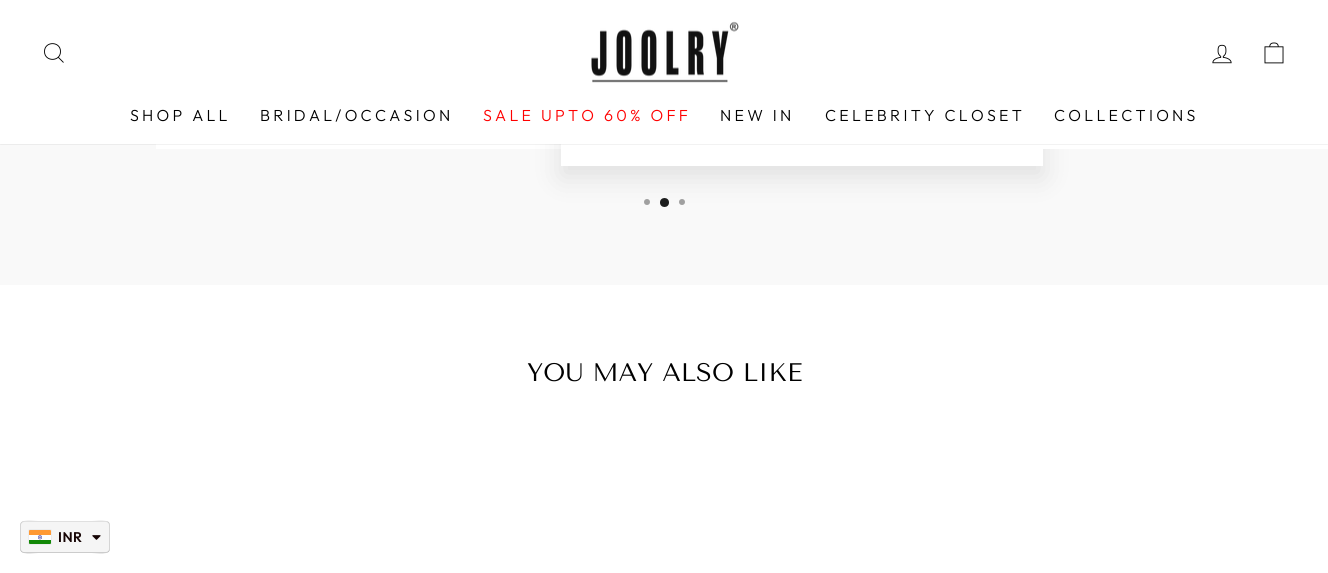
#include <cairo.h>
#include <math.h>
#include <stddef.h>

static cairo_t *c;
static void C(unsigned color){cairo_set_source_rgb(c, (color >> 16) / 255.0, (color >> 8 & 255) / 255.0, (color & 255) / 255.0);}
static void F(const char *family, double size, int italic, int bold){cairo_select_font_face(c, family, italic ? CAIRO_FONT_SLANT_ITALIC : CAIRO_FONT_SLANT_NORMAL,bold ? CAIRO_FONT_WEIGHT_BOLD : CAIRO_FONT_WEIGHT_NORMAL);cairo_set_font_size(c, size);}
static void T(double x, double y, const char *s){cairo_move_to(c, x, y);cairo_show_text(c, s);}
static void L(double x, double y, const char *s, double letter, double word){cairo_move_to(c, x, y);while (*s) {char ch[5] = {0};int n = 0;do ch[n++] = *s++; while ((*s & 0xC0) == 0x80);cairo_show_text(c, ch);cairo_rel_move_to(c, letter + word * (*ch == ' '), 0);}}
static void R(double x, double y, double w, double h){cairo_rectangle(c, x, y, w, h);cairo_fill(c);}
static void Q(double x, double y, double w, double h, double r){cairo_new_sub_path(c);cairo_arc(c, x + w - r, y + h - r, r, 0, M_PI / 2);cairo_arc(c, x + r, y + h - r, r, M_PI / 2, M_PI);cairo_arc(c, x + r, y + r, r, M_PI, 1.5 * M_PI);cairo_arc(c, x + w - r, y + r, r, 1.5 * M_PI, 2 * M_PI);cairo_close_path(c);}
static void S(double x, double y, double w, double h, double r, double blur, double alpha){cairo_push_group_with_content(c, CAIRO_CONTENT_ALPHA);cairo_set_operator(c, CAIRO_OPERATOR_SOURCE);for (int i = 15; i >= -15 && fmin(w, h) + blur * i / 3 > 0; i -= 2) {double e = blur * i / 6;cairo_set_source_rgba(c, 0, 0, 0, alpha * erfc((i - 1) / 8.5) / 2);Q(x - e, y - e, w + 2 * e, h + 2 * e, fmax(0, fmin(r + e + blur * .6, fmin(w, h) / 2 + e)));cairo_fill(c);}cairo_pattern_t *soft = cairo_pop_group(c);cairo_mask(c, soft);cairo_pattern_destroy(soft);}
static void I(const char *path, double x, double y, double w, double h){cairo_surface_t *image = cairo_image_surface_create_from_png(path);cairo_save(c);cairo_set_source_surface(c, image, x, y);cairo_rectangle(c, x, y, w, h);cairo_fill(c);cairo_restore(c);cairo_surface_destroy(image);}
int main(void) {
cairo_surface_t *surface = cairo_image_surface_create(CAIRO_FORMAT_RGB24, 1328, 573);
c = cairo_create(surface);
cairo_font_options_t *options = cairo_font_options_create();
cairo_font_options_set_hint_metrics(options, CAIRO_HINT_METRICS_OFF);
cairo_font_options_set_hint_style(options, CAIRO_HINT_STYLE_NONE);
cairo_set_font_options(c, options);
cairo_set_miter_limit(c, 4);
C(0xffffff);
cairo_paint(c);
C(0xf9f9f9);
R(0,144,1328,141);
C(0xffffff);
R(156,144,405,5);
C(0x000000);
S(561,-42,482,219,0,14,.1);
C(0xffffff);
R(561,144,482,22);
R(1043,144,285,5);
C(0x000000);
S(0,0,1328,144,0,.5,.2);
C(0xffffff);
R(0,0,1328,144);
cairo_new_path(c);
cairo_move_to(c,60.5,51.5);
cairo_curve_to(c,60.5,62,44.5,62,44.5,51.5);
cairo_curve_to(c,44.5,41,60.5,41,60.5,51.5);
cairo_close_path(c);
cairo_move_to(c,63.5,62.5);
cairo_line_to(c,58.5,57.5);
C(0x000000);
cairo_set_line_width(c,.9);
cairo_stroke(c);
I("1.png",591,21,148,62);
I("2.png",1212,44,20,20);
I("3.png",1264,42,20,22);
F("Outfit Light",16,0,0);
L(130,121,"SHOP ALL",3.25,0);
L(260,121,"BRIDAL/OCCASION",3.25,0);
C(0xff0000);
L(483,121,"SALE UPTO 60% OFF",3.25,0);
C(0x000000);
L(720,121,"NEW IN",3.25,0);
L(825,121,"CELEBRITY CLOSET",3.25,0);
L(1054,121,"COLLECTIONS",3.25,0);
C(0xa0a0a0);
cairo_new_path(c);
cairo_arc(c,647,202,3,0,2 * M_PI);
cairo_fill(c);
C(0x1c1d1d);
cairo_arc(c,664.5,202.5,4.5,0,2 * M_PI);
cairo_fill(c);
C(0xa0a0a0);
cairo_arc(c,682,202,3,0,2 * M_PI);
cairo_fill(c);
F("Tenor Sans",25.4,0,0);
C(0x000000);
T(527,381,"YOU MAY ALSO LIKE");
C(0xf5f5f5);
Q(20,521,90,32,4);
cairo_fill(c);
cairo_set_source_rgba(c,0.8,0.8,0.8,0.5);
cairo_new_path(c);
cairo_move_to(c,24,522);
cairo_line_to(c,106,522);
cairo_curve_to(c,108,522,110,524,110,526);
cairo_curve_to(c,110,518,97,521,92,521);
cairo_line_to(c,38,521);
cairo_curve_to(c,33,521,20,518,20,526);
cairo_curve_to(c,20,524,22,522,24,522);
cairo_close_path(c);
cairo_fill(c);
cairo_set_source_rgba(c,0,0,0,0.17);
cairo_new_path(c);
cairo_move_to(c,20,548);
cairo_curve_to(c,20,556,33,553,38,553);
cairo_line_to(c,92,553);
cairo_curve_to(c,97,553,110,556,110,548);
cairo_curve_to(c,110,550,108,552,106,552);
cairo_line_to(c,24,552);
cairo_curve_to(c,22,552,20,550,20,548);
cairo_close_path(c);
cairo_fill(c);
cairo_set_source_rgba(c,0,0,0,0.13);
cairo_new_path(c);
cairo_move_to(c,105,553);
cairo_curve_to(c,110.5,553,110,549.5,110,545);
cairo_line_to(c,110,529);
cairo_curve_to(c,110,524.5,110.5,521,105,521);
cairo_curve_to(c,107,521,109,523,109,525);
cairo_line_to(c,109,549);
cairo_curve_to(c,109,551,107,553,105,553);
cairo_close_path(c);
cairo_fill(c);
cairo_new_path(c);
cairo_move_to(c,24,521);
cairo_curve_to(c,22,521,20,523,20,525);
cairo_line_to(c,20,549);
cairo_curve_to(c,20,551,22,553,24,553);
cairo_line_to(c,25,553);
cairo_curve_to(c,23,553,21,551,21,549);
cairo_line_to(c,21,525);
cairo_curve_to(c,21,523,23,521,25,521);
cairo_close_path(c);
cairo_fill(c);
Q(28.5,529.5,23,15,1.5);
C(0xebeced);
cairo_set_line_width(c,1);
cairo_stroke(c);
I("4.png",29,530,22,14);
F("Outfit SemiBold",14,0,0);
C(0x150303);
L(58,542,"INR",.5,0);
I("5.png",92,535,9,5);
cairo_surface_write_to_png(surface, "o.png");
cairo_font_options_destroy(options);
cairo_destroy(c);
cairo_surface_destroy(surface);
return 0;
}
